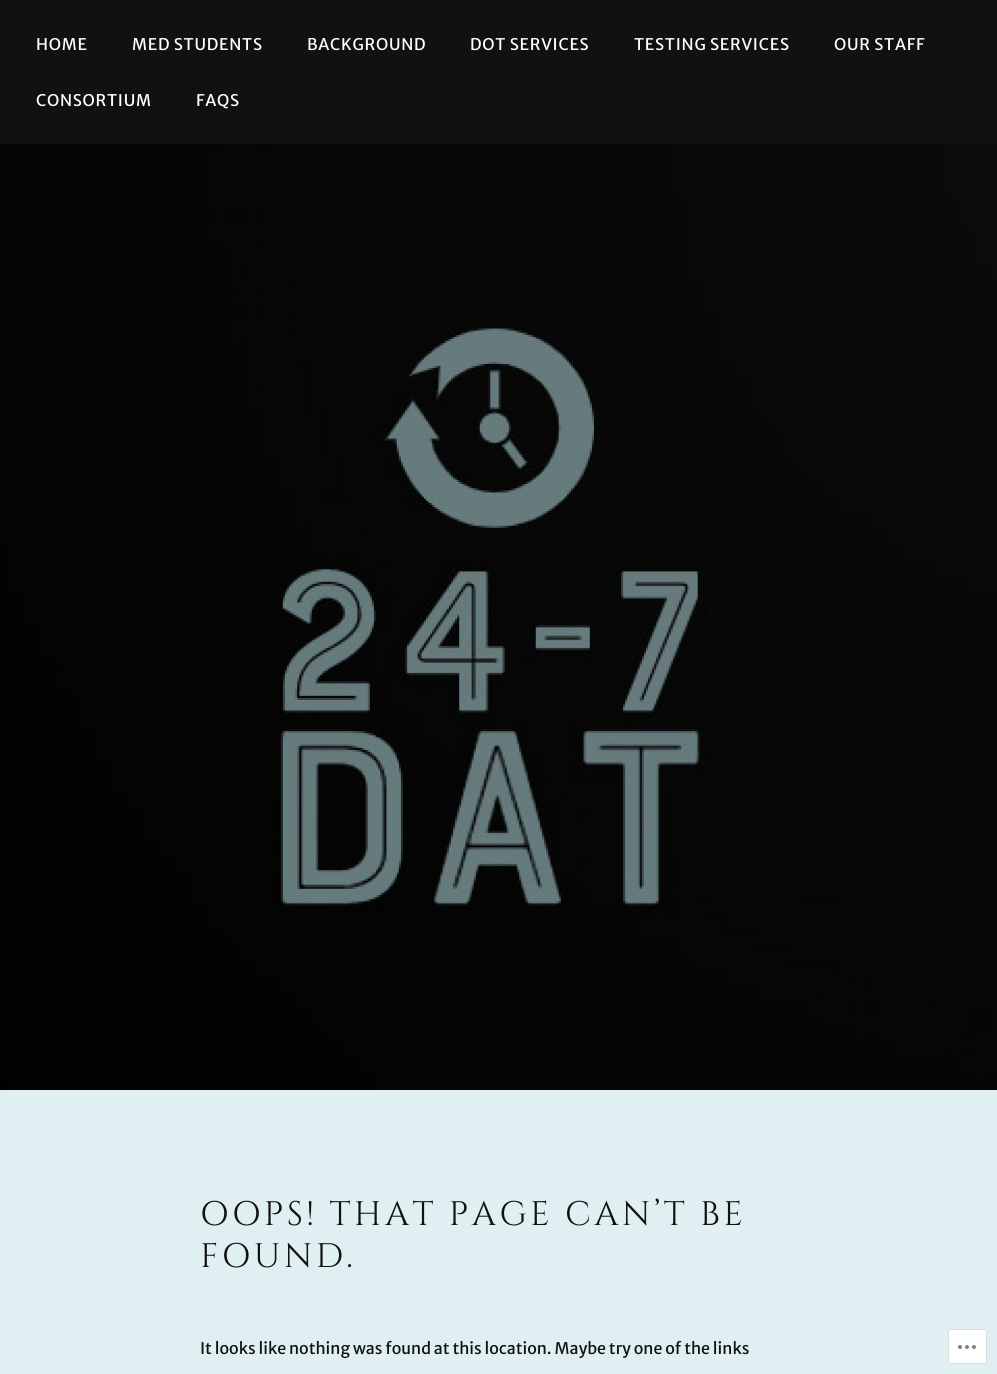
#include <cairo.h>
#include <math.h>
#include <stddef.h>

static cairo_t *c;
static void C(unsigned color){cairo_set_source_rgb(c, (color >> 16) / 255.0, (color >> 8 & 255) / 255.0, (color & 255) / 255.0);}
static void F(const char *family, double size, int italic, int bold){cairo_select_font_face(c, family, italic ? CAIRO_FONT_SLANT_ITALIC : CAIRO_FONT_SLANT_NORMAL,bold ? CAIRO_FONT_WEIGHT_BOLD : CAIRO_FONT_WEIGHT_NORMAL);cairo_set_font_size(c, size);}
static void T(double x, double y, const char *s){cairo_move_to(c, x, y);cairo_show_text(c, s);}
static void L(double x, double y, const char *s, double letter, double word){cairo_move_to(c, x, y);while (*s) {char ch[5] = {0};int n = 0;do ch[n++] = *s++; while ((*s & 0xC0) == 0x80);cairo_show_text(c, ch);cairo_rel_move_to(c, letter + word * (*ch == ' '), 0);}}
static void R(double x, double y, double w, double h){cairo_rectangle(c, x, y, w, h);cairo_fill(c);}
static void Q(double x, double y, double w, double h, double r){cairo_new_sub_path(c);cairo_arc(c, x + w - r, y + h - r, r, 0, M_PI / 2);cairo_arc(c, x + r, y + h - r, r, M_PI / 2, M_PI);cairo_arc(c, x + r, y + r, r, M_PI, 1.5 * M_PI);cairo_arc(c, x + w - r, y + r, r, 1.5 * M_PI, 2 * M_PI);cairo_close_path(c);}
static void I(const char *path, double x, double y, double w, double h){cairo_surface_t *image = cairo_image_surface_create_from_png(path);cairo_save(c);cairo_set_source_surface(c, image, x, y);cairo_rectangle(c, x, y, w, h);cairo_fill(c);cairo_restore(c);cairo_surface_destroy(image);}
int main(void) {
cairo_surface_t *surface = cairo_image_surface_create(CAIRO_FORMAT_RGB24, 997, 1374);
c = cairo_create(surface);
cairo_font_options_t *options = cairo_font_options_create();
cairo_font_options_set_hint_metrics(options, CAIRO_HINT_METRICS_OFF);
cairo_font_options_set_hint_style(options, CAIRO_HINT_STYLE_NONE);
cairo_set_font_options(c, options);
cairo_set_miter_limit(c, 4);
C(0xe0eff1);
cairo_paint(c);
C(0x111111);
R(0,0,997,144);
F("Merriweather Sans",16,0,0);
C(0xffffff);
L(36,50,"HOME",.75,0);
L(132,50,"MED STUDENTS",.75,0);
L(307,50,"BACKGROUND",.75,0);
L(470,50,"DOT SERVICES",.75,0);
L(634,50,"TESTING SERVICES",.75,0);
L(834,50,"OUR STAFF",.75,0);
L(36,106,"CONSORTIUM",.75,0);
L(196,106,"FAQS",.75,0);
I("1.png",0,144,997,946);
F("Cinzel",34,0,0);
C(0x111111);
L(200,1225,"OOPS! THAT PAGE CAN’T BE",3.4,0);
L(200,1267,"FOUND.",3.4,0);
F("Merriweather Sans",16,0,0);
T(200,1354,"It looks like nothing was found at this location. Maybe try one of the links");
C(0xfeffff);
Q(948.5,1329.5,38,34,2.5);
cairo_fill_preserve(c);
C(0xdcdcde);
cairo_set_line_width(c,1);
cairo_stroke(c);
I("2.png",958,1345,18,4);
cairo_surface_write_to_png(surface, "o.png");
cairo_font_options_destroy(options);
cairo_destroy(c);
cairo_surface_destroy(surface);
return 0;
}
